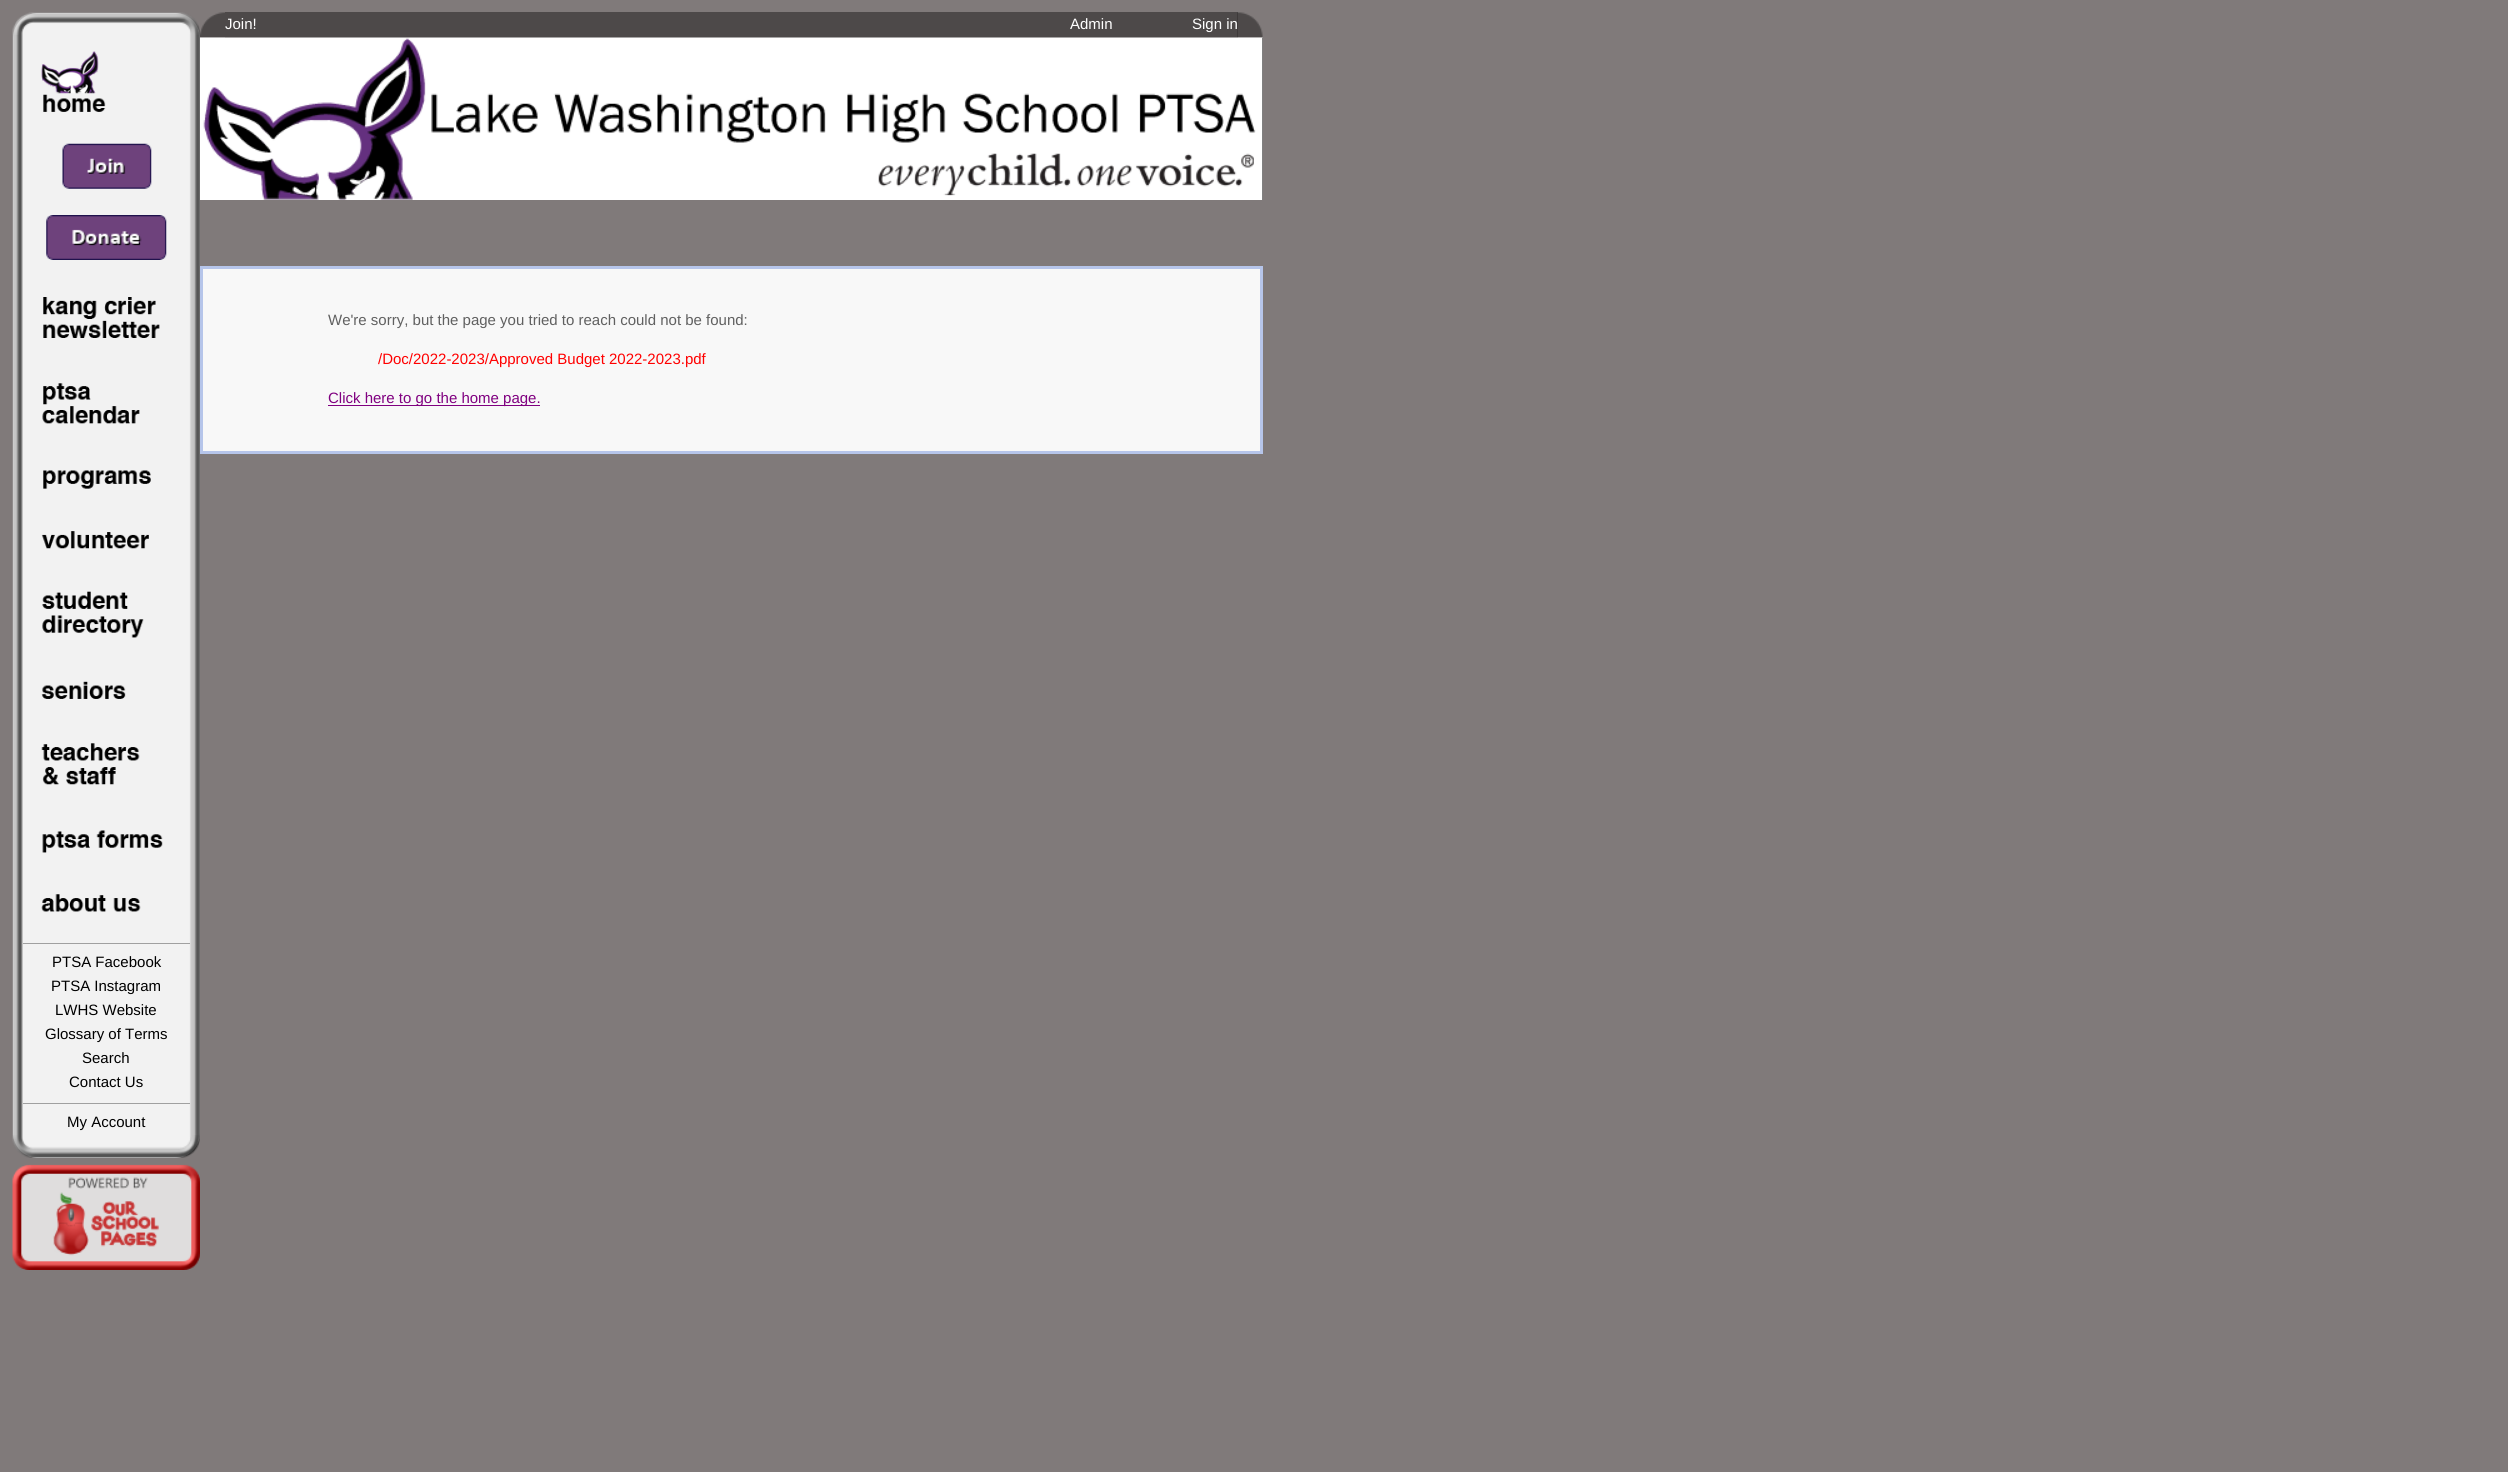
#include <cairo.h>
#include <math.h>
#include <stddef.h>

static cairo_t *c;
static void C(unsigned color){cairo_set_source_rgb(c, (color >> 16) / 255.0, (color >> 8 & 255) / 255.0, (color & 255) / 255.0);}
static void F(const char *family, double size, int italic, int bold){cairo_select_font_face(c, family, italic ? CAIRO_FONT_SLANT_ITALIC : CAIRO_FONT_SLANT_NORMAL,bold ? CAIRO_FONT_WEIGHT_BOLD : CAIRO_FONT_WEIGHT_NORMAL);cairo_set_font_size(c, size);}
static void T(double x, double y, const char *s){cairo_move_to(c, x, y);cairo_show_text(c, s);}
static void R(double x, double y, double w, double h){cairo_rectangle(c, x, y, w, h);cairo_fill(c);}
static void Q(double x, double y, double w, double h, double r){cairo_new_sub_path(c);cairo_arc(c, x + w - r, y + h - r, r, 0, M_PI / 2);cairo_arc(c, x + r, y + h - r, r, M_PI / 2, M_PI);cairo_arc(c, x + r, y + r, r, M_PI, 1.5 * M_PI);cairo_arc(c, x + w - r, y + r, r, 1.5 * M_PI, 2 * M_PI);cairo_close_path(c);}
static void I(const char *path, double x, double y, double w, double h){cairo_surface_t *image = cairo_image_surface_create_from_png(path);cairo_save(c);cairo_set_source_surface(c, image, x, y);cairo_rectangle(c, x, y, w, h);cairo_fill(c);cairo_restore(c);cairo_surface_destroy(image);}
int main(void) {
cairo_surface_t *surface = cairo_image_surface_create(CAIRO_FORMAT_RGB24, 2508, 1472);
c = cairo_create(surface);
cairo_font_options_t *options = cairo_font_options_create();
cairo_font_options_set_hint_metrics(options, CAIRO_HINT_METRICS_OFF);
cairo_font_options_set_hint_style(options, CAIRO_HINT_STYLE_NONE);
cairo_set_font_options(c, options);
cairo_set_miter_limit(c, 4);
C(0x807a7a);
cairo_paint(c);
I("1.png",200,12,25,26);
C(0x4d4949);
R(225,12,1013,26);
F("Liberation Sans",15,0,0);
C(0xffffff);
T(225,29,"Join!");
T(1070,29,"Admin");
T(1192,29,"Sign in");
I("2.png",1237,12,26,26);
C(0x000000);
R(1262,38,1,162);
I("3.png",200,37,1063,163);
C(0xf8f8f8);
cairo_rectangle(c,201.5,267.5,1060,185);
cairo_fill_preserve(c);
C(0xb6c5ea);
cairo_set_line_width(c,3);
cairo_stroke(c);
C(0x606060);
T(328,325,"We're sorry, but the page you tried to reach could not be found:");
C(0xff0000);
T(378,364,"/Doc/2022-2023/Approved Budget 2022-2023.pdf");
C(0x800080);
R(328,405,212,1);
T(328,403,"Click here to go the home page.");
C(0xf2f2f2);
Q(13,13,187,1145,25);
cairo_fill(c);
I("4.png",12,12,188,23);
I("5.png",12,35,188,1100);
I("6.png",41,51,65,61);
I("7.png",62,143,90,46);
I("8.png",46,215,121,45);
I("9.png",43,297,117,41);
I("10.png",42,383,98,41);
I("11.png",43,470,108,19);
I("12.png",41,531,108,18);
I("13.png",42,591,102,47);
I("14.png",41,681,85,18);
I("15.png",41,743,99,42);
I("16.png",42,830,121,23);
I("17.png",41,894,100,18);
C(0xa0a0a0);
R(23,943,167,1);
C(0x000000);
T(52,967,"PTSA Facebook");
T(51,991,"PTSA Instagram");
T(55,1015,"LWHS Website");
T(45,1039,"Glossary of Terms");
T(82,1063,"Search");
T(69,1087,"Contact Us");
C(0xa0a0a0);
R(23,1103,167,1);
C(0x000000);
T(67,1127,"My Account");
I("18.png",12,1135,188,23);
I("19.png",12,1164,188,106);
cairo_surface_write_to_png(surface, "o.png");
cairo_font_options_destroy(options);
cairo_destroy(c);
cairo_surface_destroy(surface);
return 0;
}
